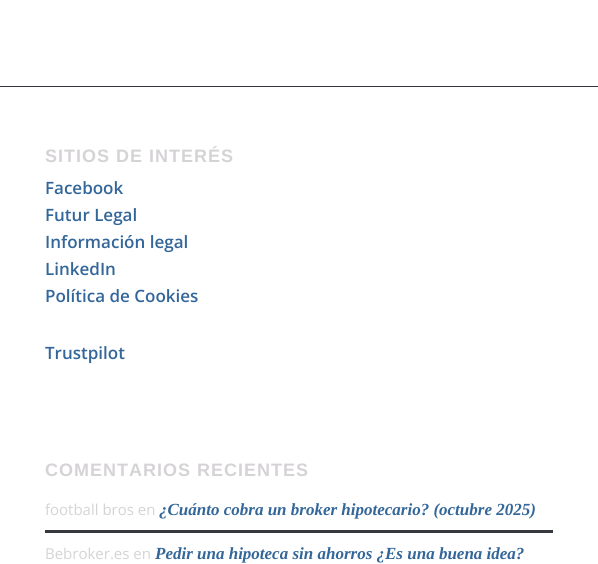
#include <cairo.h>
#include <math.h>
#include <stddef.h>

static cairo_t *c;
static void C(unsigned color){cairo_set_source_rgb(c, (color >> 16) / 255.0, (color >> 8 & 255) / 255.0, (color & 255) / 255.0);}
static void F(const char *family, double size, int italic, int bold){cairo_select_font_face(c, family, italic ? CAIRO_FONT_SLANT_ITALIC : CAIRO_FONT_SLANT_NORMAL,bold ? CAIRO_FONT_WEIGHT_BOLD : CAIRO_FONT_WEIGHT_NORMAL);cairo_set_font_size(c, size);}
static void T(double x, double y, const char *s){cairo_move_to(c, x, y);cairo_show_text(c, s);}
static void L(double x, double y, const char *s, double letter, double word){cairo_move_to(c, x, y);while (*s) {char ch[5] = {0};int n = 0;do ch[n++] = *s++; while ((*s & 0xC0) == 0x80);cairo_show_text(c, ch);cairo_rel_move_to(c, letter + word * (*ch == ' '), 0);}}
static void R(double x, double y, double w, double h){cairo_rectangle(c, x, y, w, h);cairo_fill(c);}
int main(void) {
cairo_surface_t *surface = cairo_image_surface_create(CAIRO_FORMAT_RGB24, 598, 564);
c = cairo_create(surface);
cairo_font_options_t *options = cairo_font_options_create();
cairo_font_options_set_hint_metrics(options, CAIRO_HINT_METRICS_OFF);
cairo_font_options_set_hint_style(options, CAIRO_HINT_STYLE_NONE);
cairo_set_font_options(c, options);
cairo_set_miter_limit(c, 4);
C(0xffffff);
cairo_paint(c);
C(0x35383c);
R(0,86,598,1);
F("Liberation Sans",18,0,1);
C(0xd6d3d6);
L(45,162,"SITIOS DE INTERÉS",1,0);
F("Open Sans SemiBold",17,0,0);
C(0x336699);
T(45,194,"Facebook");
T(45,221,"Futur Legal");
T(45,248,"Información legal");
T(45,275,"LinkedIn");
T(45,302,"Política de Cookies");
T(45,359,"Trustpilot");
F("Liberation Sans",18,0,1);
C(0xd6d3d6);
L(45,476,"COMENTARIOS RECIENTES",1,0);
F("Open Sans",15,0,0);
T(45,515,"football bros en");
F("Liberation Serif",17,1,1);
C(0x336699);
T(159,515,"¿Cuánto cobra un broker hipotecario? (octubre 2025)");
C(0x35383c);
R(45,530,508,3);
F("Open Sans",15,0,0);
C(0xd6d3d6);
T(45,559,"Bebroker.es en");
F("Liberation Serif",17,1,1);
C(0x336699);
T(155,559,"Pedir una hipoteca sin ahorros ¿Es una buena idea?");
cairo_surface_write_to_png(surface, "o.png");
cairo_font_options_destroy(options);
cairo_destroy(c);
cairo_surface_destroy(surface);
return 0;
}
